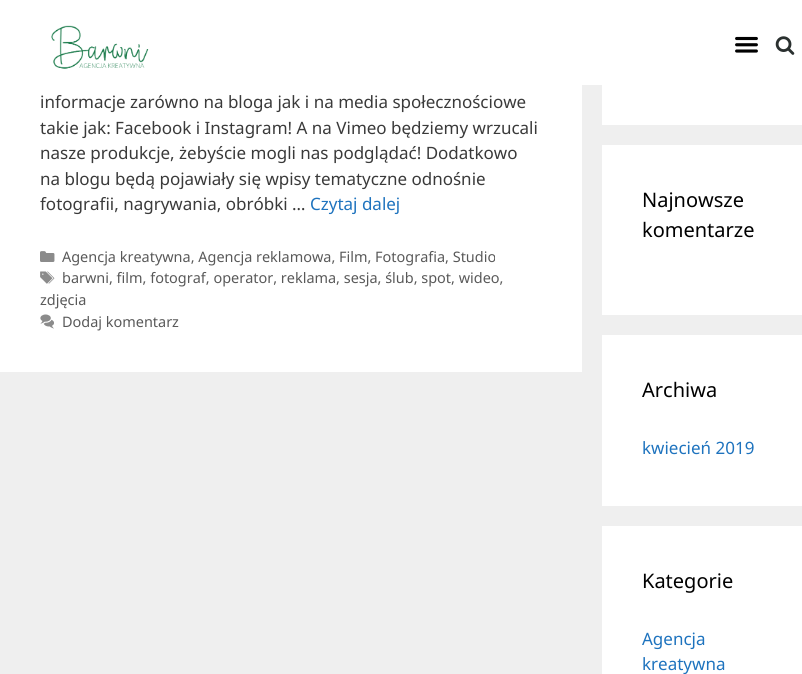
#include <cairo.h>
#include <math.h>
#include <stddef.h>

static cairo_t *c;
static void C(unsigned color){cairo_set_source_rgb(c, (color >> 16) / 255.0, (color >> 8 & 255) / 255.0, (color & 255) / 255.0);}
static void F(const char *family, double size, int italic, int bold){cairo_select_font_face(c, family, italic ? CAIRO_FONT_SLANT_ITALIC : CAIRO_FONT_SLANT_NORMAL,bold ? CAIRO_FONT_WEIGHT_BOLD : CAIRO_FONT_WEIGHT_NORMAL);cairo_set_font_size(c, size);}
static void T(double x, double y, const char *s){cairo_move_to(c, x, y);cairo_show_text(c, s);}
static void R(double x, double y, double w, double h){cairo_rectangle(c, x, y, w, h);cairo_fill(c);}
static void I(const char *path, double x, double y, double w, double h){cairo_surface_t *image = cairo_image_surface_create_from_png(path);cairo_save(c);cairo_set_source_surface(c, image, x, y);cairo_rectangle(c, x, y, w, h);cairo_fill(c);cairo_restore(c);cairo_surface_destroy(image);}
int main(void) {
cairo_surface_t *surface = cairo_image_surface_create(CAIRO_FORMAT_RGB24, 802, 674);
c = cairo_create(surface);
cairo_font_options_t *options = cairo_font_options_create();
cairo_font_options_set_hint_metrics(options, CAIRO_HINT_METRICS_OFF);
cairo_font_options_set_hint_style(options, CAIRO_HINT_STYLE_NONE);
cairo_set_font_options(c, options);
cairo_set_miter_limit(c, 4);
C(0xefefef);
cairo_paint(c);
C(0xffffff);
R(0,0,802,85);
I("1.png",51,25,98,44);
I("2.png",735,36,23,17);
I("3.png",775,36,20,19);
R(0,85,582,287);
F("Noto Sans",17,0,0);
C(0x3a3a3a);
T(40,108,"informacje zarówno na bloga jak i na media społecznościowe");
T(40,134,"takie jak: Facebook i Instagram! A na Vimeo będziemy wrzucali");
T(40,159,"nasze produkcje, żebyście mogli nas podglądać! Dodatkowo");
T(40,185,"na blogu będą pojawiały się wpisy tematyczne odnośnie");
T(40,210,"fotografii, nagrywania, obróbki …");
C(0x1e73be);
T(310,210,"Czytaj dalej");
I("4.png",40,251,15,11);
F("Noto Sans",14.45,0,0);
C(0x595959);
T(62,262,"Agencja kreatywna, Agencja reklamowa, Film, Fotografia, Studio");
I("5.png",40,271,15,13);
T(62,283,"barwni, film, fotograf, operator, reklama, sesja, ślub, spot, wideo,");
T(40,305,"zdjęcia");
I("6.png",40,314,14,15);
T(62,327,"Dodaj komentarz");
C(0xffffff);
R(602,85,200,40);
R(602,145,200,170);
F("Noto Sans",20,0,0);
C(0x000000);
T(642,207,"Najnowsze");
T(642,237,"komentarze");
C(0xffffff);
R(602,335,200,171);
C(0x000000);
T(642,397,"Archiwa");
F("Noto Sans",17,0,0);
C(0x1e73be);
T(642,454,"kwiecień 2019");
C(0xffffff);
R(602,526,200,148);
F("Noto Sans",20,0,0);
C(0x000000);
T(642,588,"Kategorie");
F("Noto Sans",17,0,0);
C(0x1e73be);
T(642,645,"Agencja");
T(642,670,"kreatywna");
cairo_surface_write_to_png(surface, "o.png");
cairo_font_options_destroy(options);
cairo_destroy(c);
cairo_surface_destroy(surface);
return 0;
}
